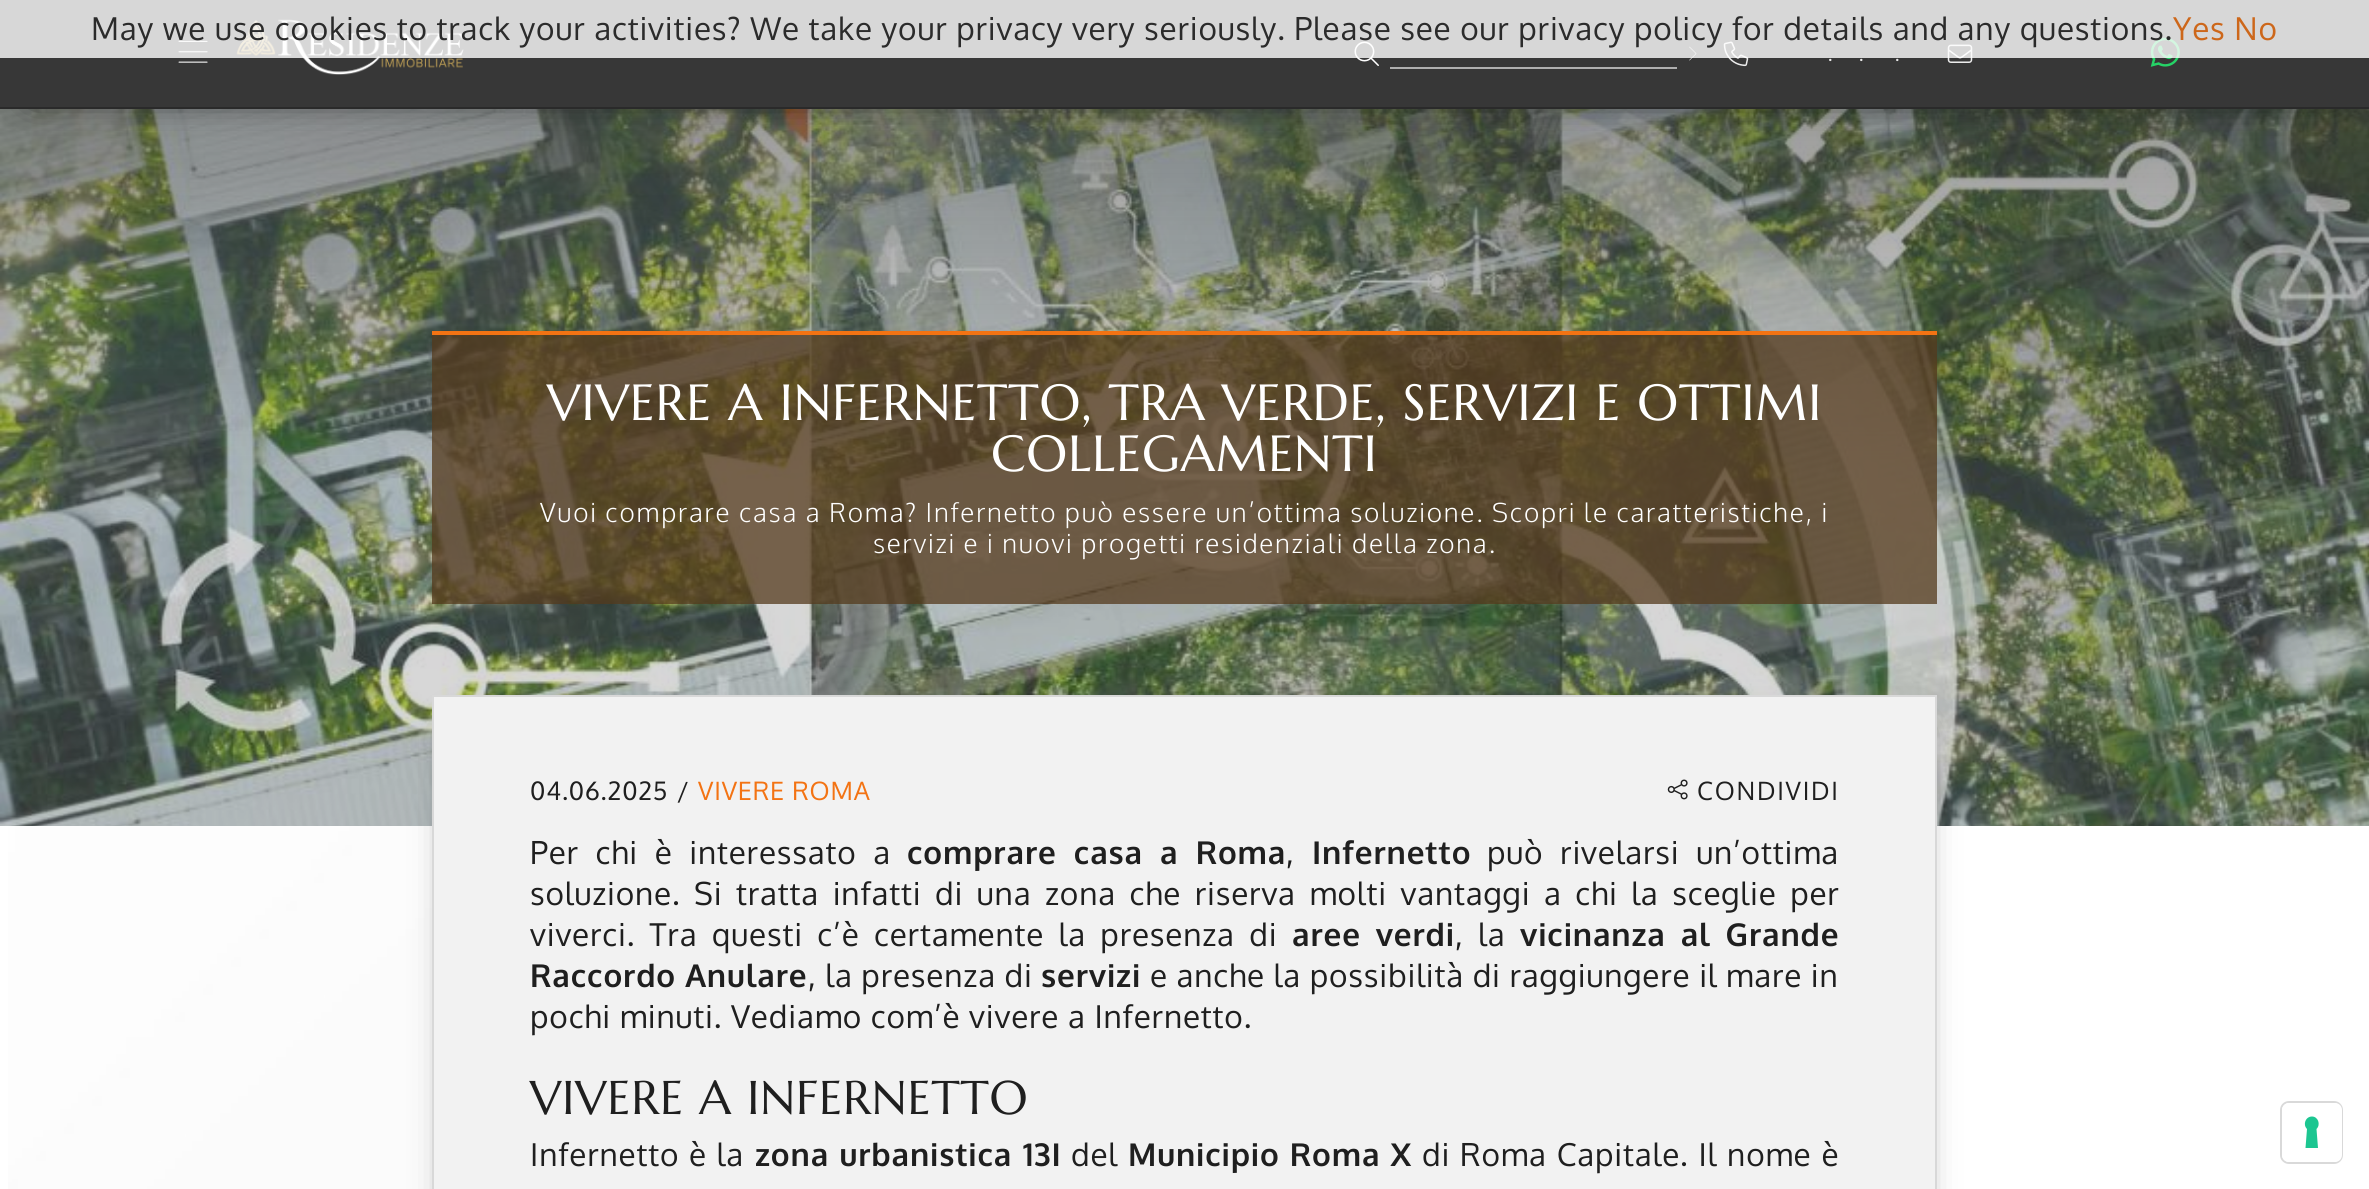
#include <cairo.h>
#include <math.h>
#include <stddef.h>

static cairo_t *c;
static void C(unsigned color){cairo_set_source_rgb(c, (color >> 16) / 255.0, (color >> 8 & 255) / 255.0, (color & 255) / 255.0);}
static void F(const char *family, double size, int italic, int bold){cairo_select_font_face(c, family, italic ? CAIRO_FONT_SLANT_ITALIC : CAIRO_FONT_SLANT_NORMAL,bold ? CAIRO_FONT_WEIGHT_BOLD : CAIRO_FONT_WEIGHT_NORMAL);cairo_set_font_size(c, size);}
static void L(double x, double y, const char *s, double letter, double word){cairo_move_to(c, x, y);while (*s) {char ch[5] = {0};int n = 0;do ch[n++] = *s++; while ((*s & 0xC0) == 0x80);cairo_show_text(c, ch);cairo_rel_move_to(c, letter + word * (*ch == ' '), 0);}}
static void R(double x, double y, double w, double h){cairo_rectangle(c, x, y, w, h);cairo_fill(c);}
static void Q(double x, double y, double w, double h, double r){cairo_new_sub_path(c);cairo_arc(c, x + w - r, y + h - r, r, 0, M_PI / 2);cairo_arc(c, x + r, y + h - r, r, M_PI / 2, M_PI);cairo_arc(c, x + r, y + r, r, M_PI, 1.5 * M_PI);cairo_arc(c, x + w - r, y + r, r, 1.5 * M_PI, 2 * M_PI);cairo_close_path(c);}
static void S(double x, double y, double w, double h, double r, double blur, double alpha){cairo_push_group_with_content(c, CAIRO_CONTENT_ALPHA);cairo_set_operator(c, CAIRO_OPERATOR_SOURCE);for (int i = 15; i >= -15 && fmin(w, h) + blur * i / 3 > 0; i -= 2) {double e = blur * i / 6;cairo_set_source_rgba(c, 0, 0, 0, alpha * erfc((i - 1) / 8.5) / 2);Q(x - e, y - e, w + 2 * e, h + 2 * e, fmax(0, fmin(r + e + blur * .6, fmin(w, h) / 2 + e)));cairo_fill(c);}cairo_pattern_t *soft = cairo_pop_group(c);cairo_mask(c, soft);cairo_pattern_destroy(soft);}
static void I(const char *path, double x, double y, double w, double h){cairo_surface_t *image = cairo_image_surface_create_from_png(path);cairo_save(c);cairo_set_source_surface(c, image, x, y);cairo_rectangle(c, x, y, w, h);cairo_fill(c);cairo_restore(c);cairo_surface_destroy(image);}
int main(void) {
cairo_surface_t *surface = cairo_image_surface_create(CAIRO_FORMAT_RGB24, 2369, 1189);
c = cairo_create(surface);
cairo_font_options_t *options = cairo_font_options_create();
cairo_font_options_set_hint_metrics(options, CAIRO_HINT_METRICS_OFF);
cairo_font_options_set_hint_style(options, CAIRO_HINT_STYLE_NONE);
cairo_set_font_options(c, options);
cairo_set_miter_limit(c, 4);
C(0xffffff);
cairo_paint(c);
I("8.png",0,109,2369,717);
C(0x000000);
S(33,51,2303,42,0,17.5,1);
C(0x373737);
R(0,0,2369,107);
I("1.png",178,40,30,23);
I("2.png",236,19,228,56);
I("3.png",1354,41,25,25);
I("4.png",1689,46,8,15);
I("5.png",1723,41,26,26);
I("6.png",1947,44,26,19);
I("7.png",2150,37,30,30);
cairo_set_source_rgba(c,1,1,1,0.8);
R(0,0,2369,58);
F("Oxygen",31.5,0,0);
C(0x2b2b2b);
L(91,40,"May we use cookies to track your activities? We take your privacy very seriously. Please see our privacy policy for details and any questions.",.84,0);
C(0xcd671a);
L(2173,40,"Yes No",.84,0);
C(0x2a2a2a);
R(0,107,2369,2);
C(0xafafaf);
R(1390,67,287,2);
F("Oxygen Light",23,0,0);
C(0xebebeb);
L(1827,61,".",1.75,0);
L(1858,61,".",1.75,0);
L(1894,61,".",1.75,0);
cairo_set_source_rgba(c,0.333,0.224,0.114,0.75);
R(432,335,1505,269);
C(0xf37313);
R(432,331,1505,4);
F("Marcellus",50.75,0,0);
C(0xffffff);
L(547,420,"VIVERE A INFERNETTO, TRA VERDE, SERVIZI E OTTIMI",.84,0);
L(991,471,"COLLEGAMENTI",.84,0);
F("Oxygen Light",26.25,0,0);
L(540,522,"Vuoi comprare casa a Roma? Infernetto può essere un’ottima soluzione. Scopri le caratteristiche, i",1.75,0);
L(873,553,"servizi e i nuovi progetti residenziali della zona.",1.75,0);
I("9.png",8,826,424,363);
C(0x000000);
S(450,730,1470,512,0,17.5,.45);
C(0xf2f2f2);
cairo_rectangle(c,433,696,1503,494);
cairo_fill_preserve(c);
C(0xd8d8d8);
cairo_stroke(c);
F("Oxygen",25.25,0,0);
C(0x1f1f1f);
L(530,800,"04.06.2025",.84,0);
L(677,800,"/",.84,0);
C(0xf37313);
L(698,800,"VIVERE ROMA",.84,0);
I("10.png",1667,779,21,21);
C(0x1f1f1f);
L(1697,800,"CONDIVIDI",1.75,0);
F("Oxygen",31.5,0,0);
L(530,864,"Per chi è interessato a",.84,8);
F("Oxygen",31.5,0,1);
L(907,864,"comprare casa a Roma",.84,8);
F("Oxygen",31.5,0,0);
L(1286,864,",",.84,0);
F("Oxygen",31.5,0,1);
L(1312,864,"Infernetto",.84,0);
F("Oxygen",31.5,0,0);
L(1487,864,"può rivelarsi un’ottima",.84,8);
L(530,905,"soluzione. Si tratta infatti di una zona che riserva molti vantaggi a chi la sceglie per",.84,4.9);
L(530,946,"viverci. Tra questi c’è certamente la presenza di",.84,5.75);
F("Oxygen",31.5,0,1);
L(1292,946,"aree verdi",.84,5.75);
F("Oxygen",31.5,0,0);
L(1455,946,", la",.84,5.75);
F("Oxygen",31.5,0,1);
L(1520,946,"vicinanza al Grande",.84,5.75);
L(530,987,"Raccordo Anulare",.84,0);
F("Oxygen",31.5,0,0);
L(808,987,", la presenza di",.84,0);
F("Oxygen",31.5,0,1);
L(1041,987,"servizi",.84,0);
F("Oxygen",31.5,0,0);
L(1150,987,"e anche la possibilità di raggiungere il mare in",.84,0);
L(530,1028,"pochi minuti. Vediamo com’è vivere a Infernetto.",.84,0);
F("Marcellus",47.25,0,0);
L(530,1114,"VIVERE A INFERNETTO",.84,0);
F("Oxygen",31.5,0,0);
L(530,1166,"Infernetto è la",.84,1);
F("Oxygen",31.5,0,1);
L(755,1166,"zona urbanistica 13I",.84,1.25);
F("Oxygen",31.5,0,0);
L(1071,1166,"del",.84,0);
F("Oxygen",31.5,0,1);
L(1128,1166,"Municipio Roma X",.84,1);
F("Oxygen",31.5,0,0);
L(1422,1166,"di Roma Capitale. Il nome è",.84,1.25);
Q(2281,1102,61,61,8);
C(0xd9d9d9);
cairo_stroke(c);
C(0xffffff);
Q(2282,1103,60,59,7);
cairo_fill(c);
C(0x1cc691);
cairo_set_fill_rule(c,CAIRO_FILL_RULE_EVEN_ODD);
cairo_new_path(c);
cairo_move_to(c,2312,1116.5);
cairo_curve_to(c,2318,1116.5,2321,1124.5,2316.5,1129);
cairo_line_to(c,2318,1148);
cairo_line_to(c,2305.5,1148);
cairo_line_to(c,2307,1129);
cairo_curve_to(c,2302.5,1124.5,2305.5,1116.5,2312,1116.5);
cairo_close_path(c);
cairo_fill(c);
cairo_surface_write_to_png(surface, "o.png");
cairo_font_options_destroy(options);
cairo_destroy(c);
cairo_surface_destroy(surface);
return 0;
}
